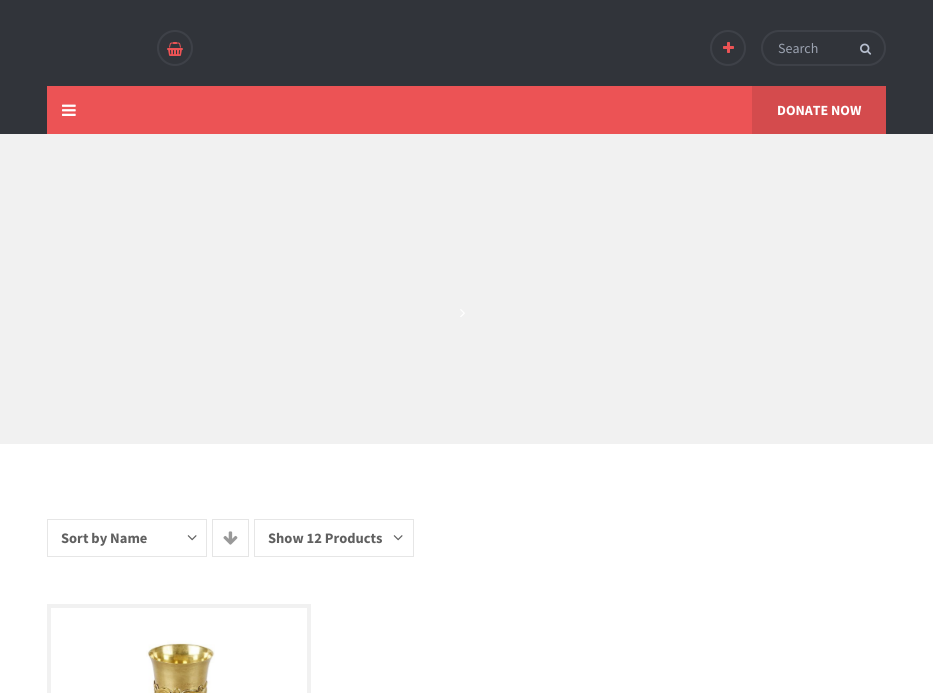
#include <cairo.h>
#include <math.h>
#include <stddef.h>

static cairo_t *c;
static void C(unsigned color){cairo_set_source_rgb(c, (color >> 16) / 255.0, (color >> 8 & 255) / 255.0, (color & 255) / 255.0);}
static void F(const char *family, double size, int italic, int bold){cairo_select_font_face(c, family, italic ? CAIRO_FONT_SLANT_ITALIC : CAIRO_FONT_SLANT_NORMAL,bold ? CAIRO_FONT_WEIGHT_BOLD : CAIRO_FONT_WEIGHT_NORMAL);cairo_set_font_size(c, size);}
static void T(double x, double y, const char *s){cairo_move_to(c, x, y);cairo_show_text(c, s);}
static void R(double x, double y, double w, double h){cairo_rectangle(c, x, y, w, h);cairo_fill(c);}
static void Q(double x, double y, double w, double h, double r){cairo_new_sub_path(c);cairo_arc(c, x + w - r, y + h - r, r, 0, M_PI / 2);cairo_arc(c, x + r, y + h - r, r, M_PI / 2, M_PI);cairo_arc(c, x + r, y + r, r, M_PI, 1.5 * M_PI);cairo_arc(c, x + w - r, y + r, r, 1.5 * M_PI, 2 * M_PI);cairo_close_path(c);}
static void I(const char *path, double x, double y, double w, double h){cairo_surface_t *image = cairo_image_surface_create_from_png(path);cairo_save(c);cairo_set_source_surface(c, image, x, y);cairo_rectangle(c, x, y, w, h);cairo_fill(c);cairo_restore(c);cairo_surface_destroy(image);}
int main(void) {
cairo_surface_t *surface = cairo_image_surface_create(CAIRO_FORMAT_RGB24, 933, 693);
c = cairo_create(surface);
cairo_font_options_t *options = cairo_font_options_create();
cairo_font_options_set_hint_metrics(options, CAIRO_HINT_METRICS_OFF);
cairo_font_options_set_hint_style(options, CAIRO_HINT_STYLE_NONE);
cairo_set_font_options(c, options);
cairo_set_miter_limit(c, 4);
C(0xffffff);
cairo_paint(c);
C(0x31343a);
R(0,0,933,134);
cairo_arc(c,175,48,17,0,2 * M_PI);
C(0x3e4148);
cairo_stroke(c);
I("1.png",167,42,16,14);
cairo_arc(c,728,48,17,0,2 * M_PI);
cairo_stroke(c);
I("2.png",723,42,11,11);
Q(762,31,123,34,17);
cairo_stroke(c);
F("Source Sans Pro",14,0,0);
C(0x9ca3b1);
T(778,53,"Search");
I("3.png",860,43,12,12);
C(0xec5355);
R(47,86,705,48);
I("4.png",62,104,14,12);
C(0xd44b4d);
R(752,86,134,48);
F("Source Sans Pro",14,0,1);
C(0xffffff);
T(777,115,"DONATE NOW");
C(0xf1f1f1);
R(0,134,933,310);
I("5.png",460,309,5,8);
cairo_rectangle(c,47.5,519.5,159,37);
C(0xe6e6e6);
cairo_set_line_width(c,1);
cairo_stroke(c);
F("Source Sans Pro",14.5,0,1);
C(0x606060);
T(61,543,"Sort by Name");
I("6.png",187,535,10,6);
cairo_rectangle(c,212.5,519.5,36,37);
C(0xe5e5e5);
cairo_stroke(c);
I("7.png",223,531,15,14);
cairo_rectangle(c,254.5,519.5,159,37);
C(0xe6e6e6);
cairo_stroke(c);
C(0x606060);
T(268,543,"Show 12 Products");
I("6.png",393,535,10,6);
cairo_rectangle(c,49,606,260,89);
C(0xf1f1f1);
cairo_set_line_width(c,4);
cairo_stroke(c);
I("8.png",146,640,69,53);
cairo_surface_write_to_png(surface, "o.png");
cairo_font_options_destroy(options);
cairo_destroy(c);
cairo_surface_destroy(surface);
return 0;
}
